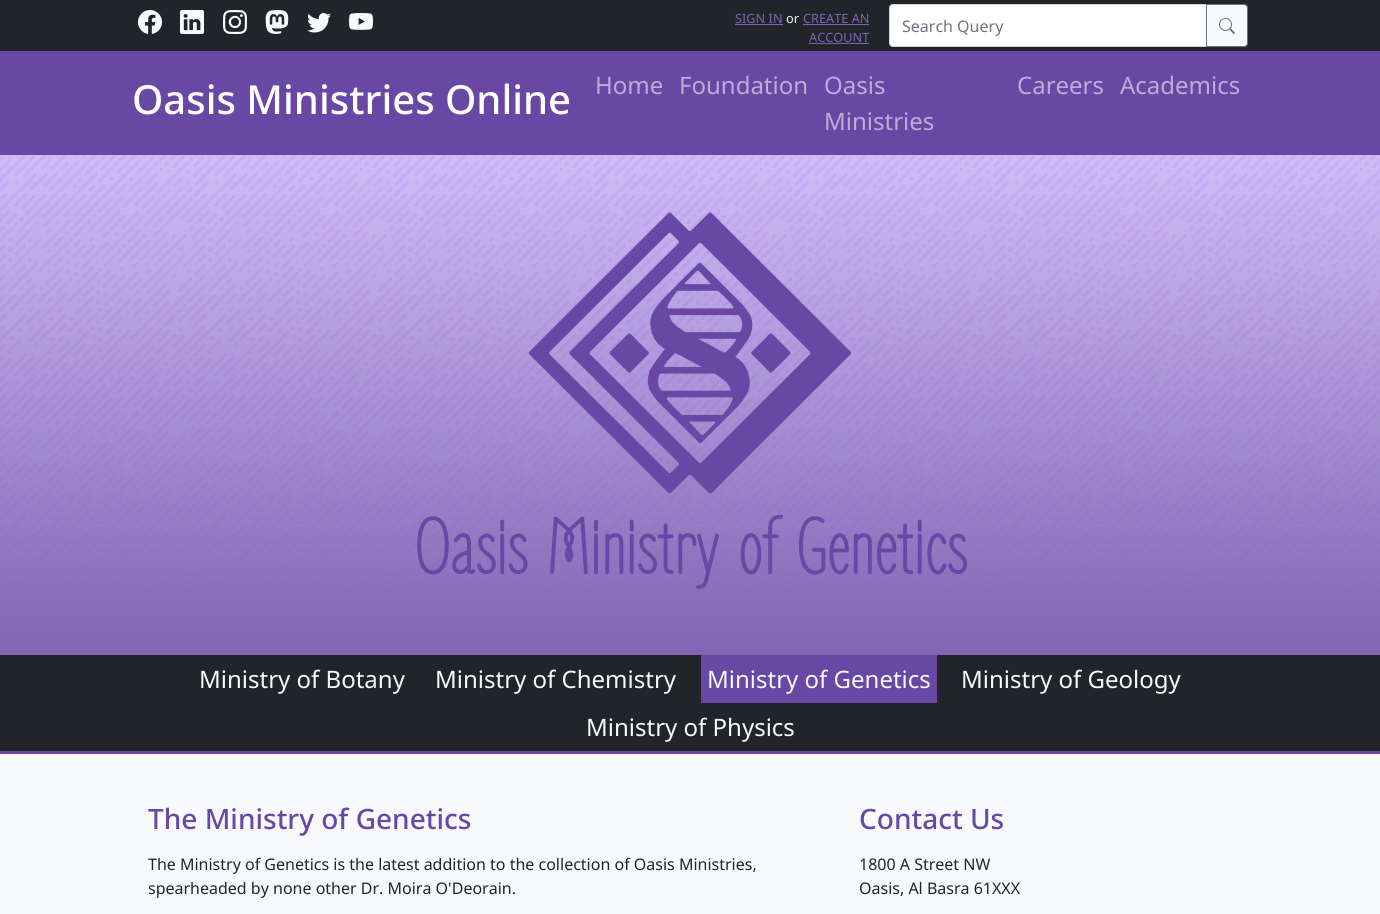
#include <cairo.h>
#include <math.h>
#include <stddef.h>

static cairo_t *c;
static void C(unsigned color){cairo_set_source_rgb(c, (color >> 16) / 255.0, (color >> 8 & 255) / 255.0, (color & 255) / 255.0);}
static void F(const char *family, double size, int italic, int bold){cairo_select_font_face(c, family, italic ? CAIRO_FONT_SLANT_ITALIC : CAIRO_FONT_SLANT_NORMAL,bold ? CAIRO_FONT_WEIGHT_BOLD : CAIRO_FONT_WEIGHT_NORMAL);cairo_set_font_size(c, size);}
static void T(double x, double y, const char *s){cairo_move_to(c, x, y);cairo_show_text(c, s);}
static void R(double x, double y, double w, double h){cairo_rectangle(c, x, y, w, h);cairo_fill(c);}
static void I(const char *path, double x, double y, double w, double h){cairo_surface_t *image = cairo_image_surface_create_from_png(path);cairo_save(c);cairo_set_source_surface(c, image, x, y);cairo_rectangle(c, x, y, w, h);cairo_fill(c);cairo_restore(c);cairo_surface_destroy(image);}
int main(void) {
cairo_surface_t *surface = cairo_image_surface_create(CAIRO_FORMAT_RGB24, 1380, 914);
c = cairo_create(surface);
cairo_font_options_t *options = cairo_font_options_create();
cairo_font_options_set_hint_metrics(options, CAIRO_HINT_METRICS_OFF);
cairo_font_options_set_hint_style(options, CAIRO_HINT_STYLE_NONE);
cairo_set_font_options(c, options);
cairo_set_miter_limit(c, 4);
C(0xffffff);
cairo_paint(c);
I("1.png",0,155,1380,500);
C(0x212529);
R(0,0,1380,51);
I("2.png",138,10,24,24);
I("3.png",180,10,24,24);
I("4.png",223,10,24,24);
I("5.png",265,10,24,24);
I("6.png",307,13,24,20);
I("7.png",349,12,24,18);
F("Noto Sans",12.75,0,0);
C(0x8065b3);
T(735,23,"SIGN IN");
R(735,24,48,1);
C(0xf8f9fa);
T(786,23,"or");
C(0x8065b3);
T(803,23,"CREATE AN");
R(803,24,66,1);
T(809,42,"ACCOUNT");
R(809,43,60,1);
C(0xffffff);
cairo_new_path(c);
cairo_move_to(c,893,4.5);
cairo_line_to(c,1206.5,4.5);
cairo_line_to(c,1206.5,46.5);
cairo_line_to(c,893,46.5);
cairo_curve_to(c,891,46.5,889.5,45,889.5,43);
cairo_line_to(c,889.5,8);
cairo_curve_to(c,889.5,6,891,4.5,893,4.5);
cairo_close_path(c);
cairo_fill_preserve(c);
C(0xced4da);
cairo_set_line_width(c,1);
cairo_stroke(c);
F("Noto Sans",16,0,0);
C(0x6c757d);
T(902,32,"Search Query");
C(0xf8f9fa);
cairo_new_path(c);
cairo_move_to(c,1206.5,4.5);
cairo_line_to(c,1244,4.5);
cairo_curve_to(c,1246,4.5,1247.5,6,1247.5,8);
cairo_line_to(c,1247.5,43);
cairo_curve_to(c,1247.5,45,1246,46.5,1244,46.5);
cairo_line_to(c,1206.5,46.5);
cairo_close_path(c);
cairo_fill_preserve(c);
C(0x6c757d);
cairo_stroke(c);
I("8.png",1219,18,16,16);
C(0x6848a4);
R(0,51,1380,104);
F("Noto Sans Medium",40,0,0);
C(0xffffff);
T(132,114,"Oasis Ministries Online");
F("Noto Sans",24,0,0);
C(0xbbadd6);
T(595,94,"Home");
T(679,94,"Foundation");
T(824,94,"Oasis");
T(824,130,"Ministries");
T(1017,94,"Careers");
T(1120,94,"Academics");
I("9.png",528,212,324,282);
F("Zen Loop",80,0,1);
C(0x6848a4);
T(414,574,"Oasis Ministry of Genetics");
C(0x212529);
R(0,655,1380,96);
C(0x6848a4);
R(0,751,1380,3);
F("Noto Sans",24,0,0);
C(0xf8f9fa);
T(199,688,"Ministry of Botany");
T(435,688,"Ministry of Chemistry");
C(0x6848a4);
R(701,655,236,48);
C(0xf8f9fa);
T(707,688,"Ministry of Genetics");
T(961,688,"Ministry of Geology");
T(586,736,"Ministry of Physics");
R(0,754,1380,160);
F("Noto Sans Medium",28,0,0);
C(0x6848a4);
T(148,829,"The Ministry of Genetics");
F("Noto Sans",16,0,0);
C(0x212529);
T(148,870,"The Ministry of Genetics is the latest addition to the collection of Oasis Ministries,");
T(148,894,"spearheaded by none other Dr. Moira O'Deorain.");
F("Noto Sans Medium",28,0,0);
C(0x6848a4);
T(859,829,"Contact Us");
F("Noto Sans",16,0,0);
C(0x212529);
T(859,870,"1800 A Street NW");
T(859,894,"Oasis, Al Basra 61XXX");
cairo_surface_write_to_png(surface, "o.png");
cairo_font_options_destroy(options);
cairo_destroy(c);
cairo_surface_destroy(surface);
return 0;
}
